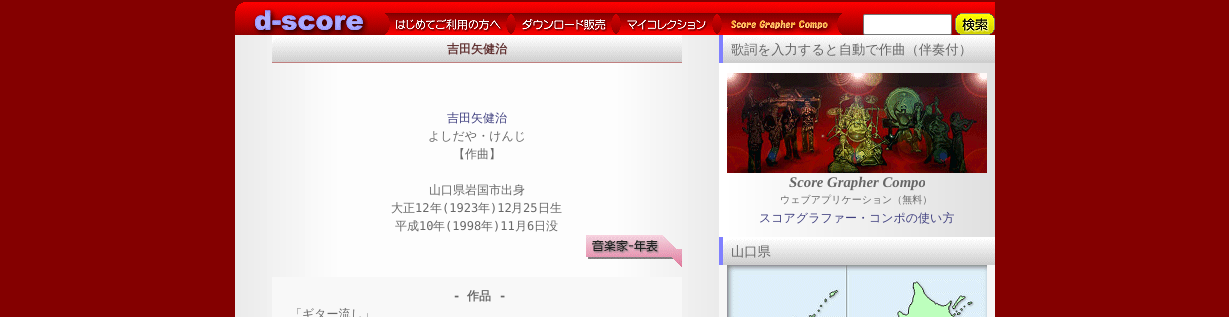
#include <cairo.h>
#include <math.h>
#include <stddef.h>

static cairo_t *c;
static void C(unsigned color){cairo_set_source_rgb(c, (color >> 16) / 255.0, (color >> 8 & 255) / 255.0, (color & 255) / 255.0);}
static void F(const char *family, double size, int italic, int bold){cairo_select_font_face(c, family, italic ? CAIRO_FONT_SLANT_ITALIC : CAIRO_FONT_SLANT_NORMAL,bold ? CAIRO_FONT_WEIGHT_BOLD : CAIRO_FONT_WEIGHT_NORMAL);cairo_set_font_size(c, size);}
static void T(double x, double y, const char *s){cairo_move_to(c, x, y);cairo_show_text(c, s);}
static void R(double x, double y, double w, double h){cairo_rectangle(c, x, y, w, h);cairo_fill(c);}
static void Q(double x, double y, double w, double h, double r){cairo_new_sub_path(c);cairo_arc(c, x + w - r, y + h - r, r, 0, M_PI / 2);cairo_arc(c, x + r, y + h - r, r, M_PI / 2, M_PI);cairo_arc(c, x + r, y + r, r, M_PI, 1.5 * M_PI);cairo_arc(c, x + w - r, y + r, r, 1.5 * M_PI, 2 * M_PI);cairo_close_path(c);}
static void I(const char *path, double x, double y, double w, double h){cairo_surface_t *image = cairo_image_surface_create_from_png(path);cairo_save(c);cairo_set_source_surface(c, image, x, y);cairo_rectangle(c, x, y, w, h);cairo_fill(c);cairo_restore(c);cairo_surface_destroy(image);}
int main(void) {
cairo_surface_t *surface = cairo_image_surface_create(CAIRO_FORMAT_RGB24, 1229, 317);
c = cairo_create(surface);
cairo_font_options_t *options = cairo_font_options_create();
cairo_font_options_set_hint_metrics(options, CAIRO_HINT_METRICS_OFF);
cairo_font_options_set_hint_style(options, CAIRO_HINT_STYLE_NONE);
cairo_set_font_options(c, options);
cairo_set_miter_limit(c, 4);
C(0x840000);
cairo_paint(c);
C(0xff0000);
R(243,2,752,1);
I("1.png",235,3,760,32);
I("2.png",235,2,133,33);
I("3.png",385,13,126,22);
I("4.png",511,13,105,22);
I("5.png",616,13,101,22);
I("6.png",717,13,125,22);
C(0xffffff);
Q(863.5,14.5,88,20,1.5);
cairo_fill_preserve(c);
C(0x767676);
cairo_set_line_width(c,1);
cairo_stroke(c);
I("7.png",955,13,40,22);
I("8.png",235,35,484,282);
C(0xffffff);
R(272,35,410,2);
I("9.png",272,37,410,25);
C(0xc08080);
R(272,62,410,1);
F("WenQuanYi Zen Hei",12,0,1);
C(0x603030);
T(447,53,"吉田矢健治");
F("WenQuanYi Zen Hei Medium",12,0,0);
C(0x404080);
T(447,122,"吉田矢健治");
C(0x666666);
T(428,140,"よしだや・けんじ");
T(453,158,"【作曲】");
T(429,194,"山口県岩国市出身");
T(391,212,"大正");
F("DejaVu Sans Mono",12,0,0);
T(415,212,"12");
F("WenQuanYi Zen Hei Medium",12,0,0);
T(430,212,"年");
F("DejaVu Sans Mono",12,0,0);
T(442,212,"(1923");
F("WenQuanYi Zen Hei Medium",12,0,0);
T(478,212,"年");
F("DejaVu Sans Mono",12,0,0);
T(490,212,")12");
F("WenQuanYi Zen Hei Medium",12,0,0);
T(511,212,"月");
F("DejaVu Sans Mono",12,0,0);
T(523,212,"25");
F("WenQuanYi Zen Hei Medium",12,0,0);
T(538,212,"日生");
T(395,230,"平成");
F("DejaVu Sans Mono",12,0,0);
T(419,230,"10");
F("WenQuanYi Zen Hei Medium",12,0,0);
T(433,230,"年");
F("DejaVu Sans Mono",12,0,0);
T(445,230,"(1998");
F("WenQuanYi Zen Hei Medium",12,0,0);
T(481,230,"年");
F("DejaVu Sans Mono",12,0,0);
T(493,230,")11");
F("WenQuanYi Zen Hei Medium",12,0,0);
T(515,230,"月");
F("DejaVu Sans Mono",12,0,0);
T(527,230,"6");
F("WenQuanYi Zen Hei Medium",12,0,0);
T(534,230,"日没");
I("10.png",586,235,96,32);
C(0xf8f8f8);
R(272,277,410,40);
F("DejaVu Sans Mono",12,0,1);
C(0x666666);
T(453,300,"-");
F("WenQuanYi Zen Hei",12,0,1);
T(467,300,"作品");
F("DejaVu Sans Mono",12,0,1);
T(499,300,"-");
F("WenQuanYi Zen Hei Medium",12,0,0);
T(290,318,"「ギター流し」");
C(0xf7f7f7);
R(719,265,276,52);
I("11.png",719,63,276,174);
C(0xffffff);
R(723,35,272,2);
I("12.png",723,37,272,26);
C(0x8080ff);
R(719,35,4,28);
F("WenQuanYi Zen Hei Medium",13.3,0,0);
C(0x666666);
T(731,54,"歌詞を入力すると自動で作曲（伴奏付）");
I("13.png",727,73,260,100);
F("Liberation Serif",14.75,1,1);
T(789,187,"Score Grapher Compo");
F("WenQuanYi Zen Hei Medium",10,0,0);
T(780,203,"ウェブアプリケーション（無料）");
F("WenQuanYi Zen Hei Medium",12,0,0);
C(0x404080);
T(759,222,"スコアグラファー・コンポの使い方");
C(0xffffff);
R(723,237,272,2);
I("12.png",723,239,272,26);
C(0x8080ff);
R(719,237,4,28);
F("WenQuanYi Zen Hei Medium",13.3,0,0);
C(0x666666);
T(731,256,"山口県");
I("14.png",727,265,260,52);
cairo_surface_write_to_png(surface, "o.png");
cairo_font_options_destroy(options);
cairo_destroy(c);
cairo_surface_destroy(surface);
return 0;
}
